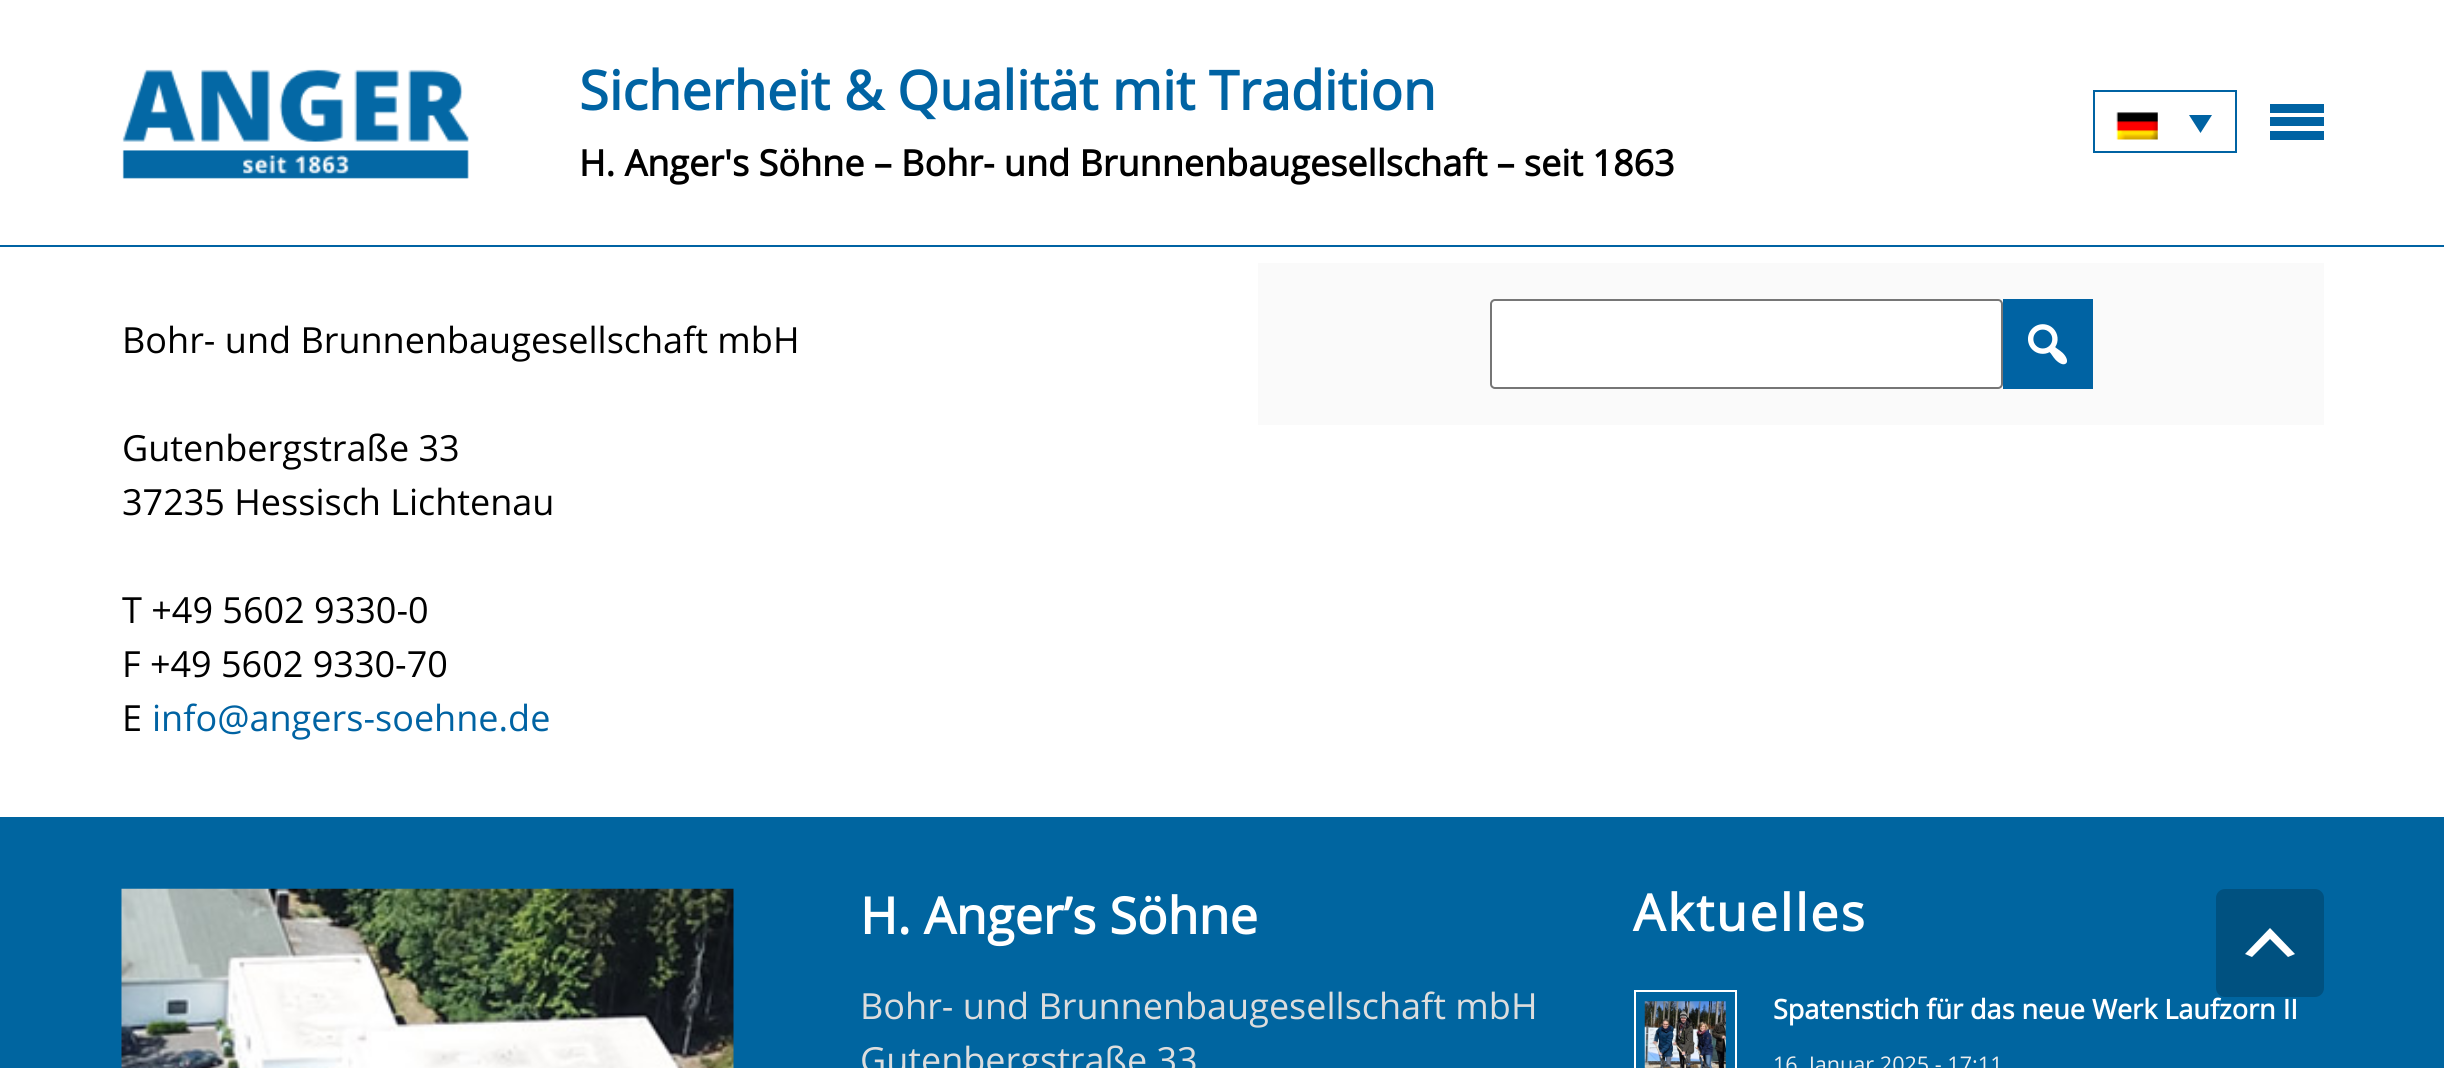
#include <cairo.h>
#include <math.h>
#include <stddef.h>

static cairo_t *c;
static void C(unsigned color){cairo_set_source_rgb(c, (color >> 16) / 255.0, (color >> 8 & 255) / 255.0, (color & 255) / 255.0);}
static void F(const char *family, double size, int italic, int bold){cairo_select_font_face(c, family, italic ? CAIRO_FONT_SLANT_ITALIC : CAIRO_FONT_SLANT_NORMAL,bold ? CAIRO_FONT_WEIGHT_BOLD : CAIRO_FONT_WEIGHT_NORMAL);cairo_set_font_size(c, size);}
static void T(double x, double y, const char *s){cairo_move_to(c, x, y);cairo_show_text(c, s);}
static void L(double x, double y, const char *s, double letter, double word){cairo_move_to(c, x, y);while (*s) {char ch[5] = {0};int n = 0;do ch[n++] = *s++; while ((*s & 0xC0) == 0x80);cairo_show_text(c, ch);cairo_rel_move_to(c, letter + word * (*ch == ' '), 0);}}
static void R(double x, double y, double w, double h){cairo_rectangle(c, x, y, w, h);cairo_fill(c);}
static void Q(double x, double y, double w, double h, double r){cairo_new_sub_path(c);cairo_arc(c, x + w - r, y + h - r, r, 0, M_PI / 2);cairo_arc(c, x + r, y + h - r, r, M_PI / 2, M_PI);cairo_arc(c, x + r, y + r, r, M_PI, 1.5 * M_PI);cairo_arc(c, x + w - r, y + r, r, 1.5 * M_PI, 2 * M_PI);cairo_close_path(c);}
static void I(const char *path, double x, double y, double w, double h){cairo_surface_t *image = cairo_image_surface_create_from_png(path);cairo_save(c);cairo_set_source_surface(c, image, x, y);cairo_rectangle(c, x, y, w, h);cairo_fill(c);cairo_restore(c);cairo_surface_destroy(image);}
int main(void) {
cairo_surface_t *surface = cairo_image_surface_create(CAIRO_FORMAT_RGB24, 2444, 1068);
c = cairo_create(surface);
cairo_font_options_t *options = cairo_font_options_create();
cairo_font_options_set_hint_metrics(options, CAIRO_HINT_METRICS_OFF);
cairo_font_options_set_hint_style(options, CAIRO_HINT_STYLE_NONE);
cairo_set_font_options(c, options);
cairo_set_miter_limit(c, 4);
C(0xffffff);
cairo_paint(c);
C(0x0063a3);
R(0,245,2444,2);
I("1.png",122,69,347,110);
F("Open Sans",54,0,1);
T(579,110,"Sicherheit & Qualität mit Tradition");
F("Open Sans",36,0,1);
C(0x000000);
T(579,176,"H. Anger's Söhne – Bohr- und Brunnenbaugesellschaft – seit 1863");
cairo_rectangle(c,2094,91,142,61);
C(0x0063a3);
cairo_stroke(c);
I("2.png",2116,112,42,28);
cairo_new_path(c);
cairo_move_to(c,2189,115);
cairo_line_to(c,2212,115);
cairo_line_to(c,2200.5,133);
cairo_close_path(c);
cairo_fill(c);
R(2270,104,54,9);
R(2270,117,54,9);
R(2270,131,54,9);
F("Open Sans",36,0,0);
C(0x000000);
T(122,353,"Bohr- und Brunnenbaugesellschaft mbH");
T(122,461,"Gutenbergstraße 33");
T(122,515,"37235 Hessisch Lichtenau");
T(122,623,"T +49 5602 9330-0");
T(122,677,"F +49 5602 9330-70");
T(122,731,"E");
C(0x0063a3);
T(152,731,"info@angers-soehne.de");
C(0xfafafa);
R(1258,263,1066,162);
C(0xffffff);
Q(1491,300,511,88,4);
cairo_fill_preserve(c);
C(0x767676);
cairo_stroke(c);
C(0x0063a3);
R(2003,299,90,90);
I("3.png",2028,324,39,41);
C(0x0065a0);
R(0,817,2444,251);
C(0x005180);
Q(2216,889,108,108,9);
cairo_fill(c);
C(0xffffff);
cairo_new_path(c);
cairo_move_to(c,2288,957);
cairo_line_to(c,2270,939);
cairo_line_to(c,2252,957);
cairo_line_to(c,2245,954);
cairo_line_to(c,2270,928);
cairo_line_to(c,2295,954);
cairo_close_path(c);
cairo_fill(c);
I("4.png",121,888,613,180);
F("Open Sans",50.5,0,1);
T(860,934,"H. Anger’s Söhne");
F("Open Sans",36,0,0);
C(0xdddddd);
T(860,1019,"Bohr- und Brunnenbaugesellschaft mbH");
T(860,1073,"Gutenbergstraße 33");
F("Open Sans",50.5,0,1);
C(0xffffff);
L(1633,931,"Aktuelles",2.25,0);
cairo_rectangle(c,1635,991,101,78);
cairo_stroke(c);
I("5.png",1644,1001,82,67);
F("Open Sans",27,0,1);
T(1773,1019,"Spatenstich für das neue Werk Laufzorn II");
F("Open Sans",21.6,0,0);
C(0xeeeeee);
T(1773,1072,"16. Januar 2025 - 17:11");
cairo_surface_write_to_png(surface, "o.png");
cairo_font_options_destroy(options);
cairo_destroy(c);
cairo_surface_destroy(surface);
return 0;
}
